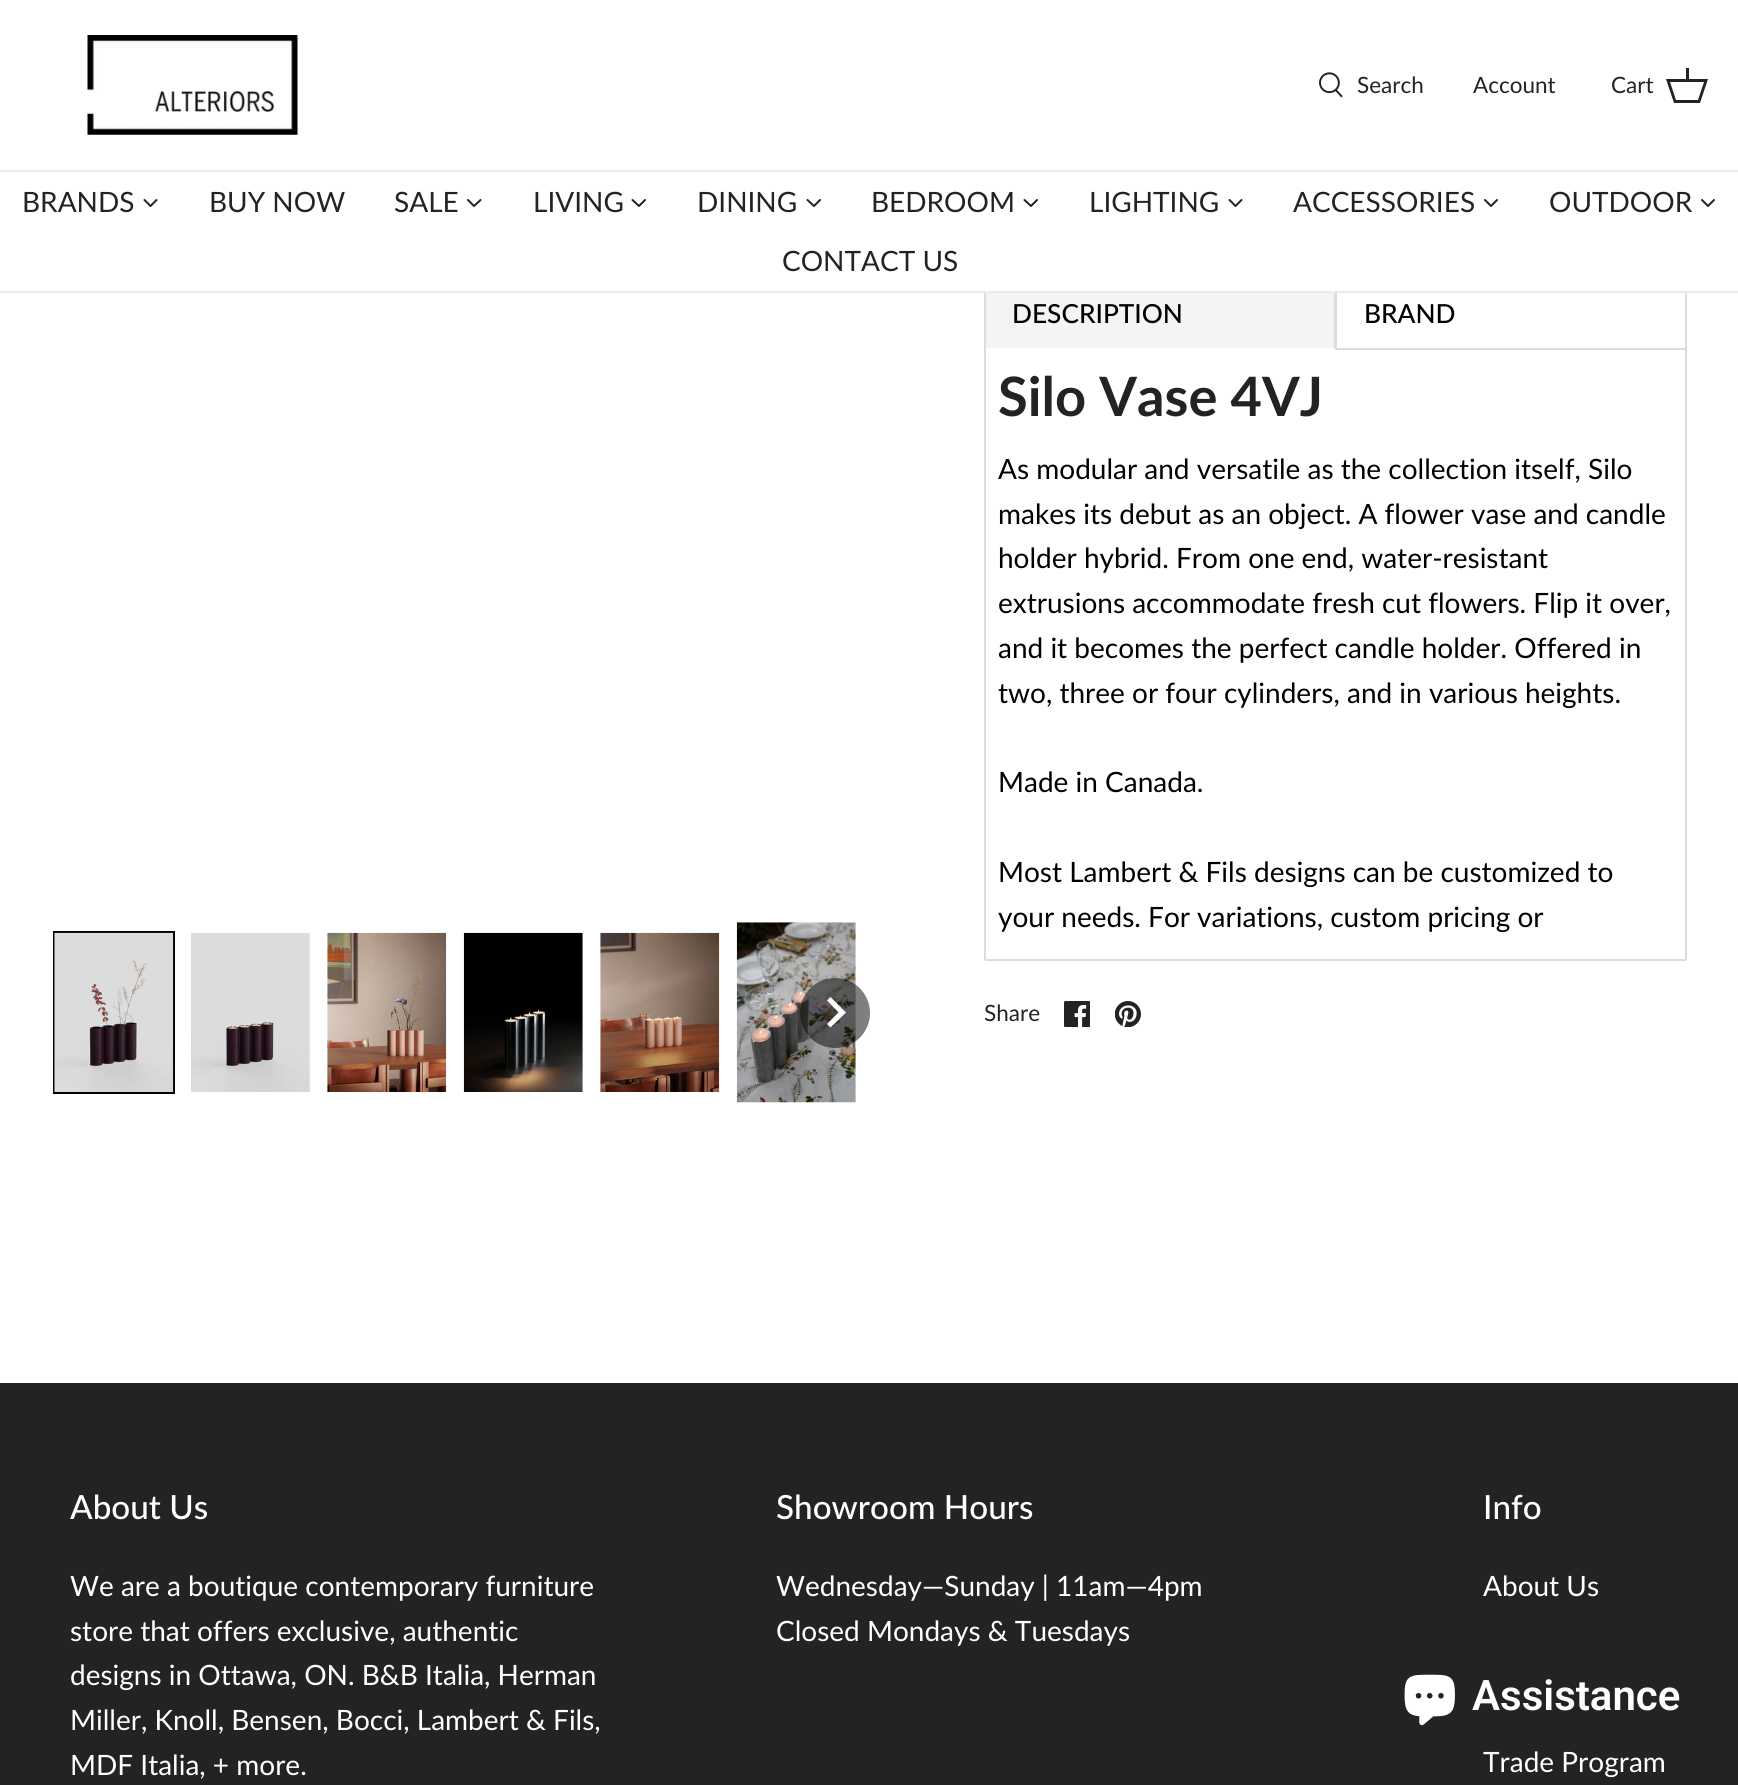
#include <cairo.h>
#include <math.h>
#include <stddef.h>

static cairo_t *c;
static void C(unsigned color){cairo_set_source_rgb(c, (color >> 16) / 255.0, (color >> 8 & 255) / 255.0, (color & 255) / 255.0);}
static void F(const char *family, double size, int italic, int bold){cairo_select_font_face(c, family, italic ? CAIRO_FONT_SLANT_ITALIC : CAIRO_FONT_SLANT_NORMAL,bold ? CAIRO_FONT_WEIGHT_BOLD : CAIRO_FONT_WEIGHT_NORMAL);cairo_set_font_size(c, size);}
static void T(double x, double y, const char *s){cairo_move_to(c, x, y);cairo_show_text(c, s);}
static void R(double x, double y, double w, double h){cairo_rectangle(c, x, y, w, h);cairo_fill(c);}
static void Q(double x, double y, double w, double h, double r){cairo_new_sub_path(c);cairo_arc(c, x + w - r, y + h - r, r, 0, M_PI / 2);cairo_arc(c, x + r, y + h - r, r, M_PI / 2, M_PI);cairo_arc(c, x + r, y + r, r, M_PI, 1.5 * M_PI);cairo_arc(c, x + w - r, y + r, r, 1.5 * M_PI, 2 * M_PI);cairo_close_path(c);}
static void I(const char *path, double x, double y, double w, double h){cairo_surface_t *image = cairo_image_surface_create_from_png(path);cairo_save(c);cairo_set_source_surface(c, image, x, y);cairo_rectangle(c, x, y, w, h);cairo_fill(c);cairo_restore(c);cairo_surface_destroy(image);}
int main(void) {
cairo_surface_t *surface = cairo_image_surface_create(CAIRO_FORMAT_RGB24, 1738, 1785);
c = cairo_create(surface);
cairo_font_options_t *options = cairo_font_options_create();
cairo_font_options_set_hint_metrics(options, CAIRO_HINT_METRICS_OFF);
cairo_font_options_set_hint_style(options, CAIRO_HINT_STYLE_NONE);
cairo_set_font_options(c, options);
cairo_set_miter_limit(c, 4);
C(0xffffff);
cairo_paint(c);
C(0xebeae6);
R(0,170,1738,2);
I("1.png",87,35,211,100);
I("2.png",1319,72,24,26);
F("Lato",22.5,0,0);
C(0x232323);
T(1357,93,"Search");
T(1473,93,"Account");
T(1611,93,"Cart");
cairo_new_path(c);
cairo_move_to(c,1686,79);
cairo_line_to(c,1686,68);
cairo_line_to(c,1689,68);
cairo_line_to(c,1689,79);
cairo_line_to(c,1708,79);
cairo_line_to(c,1700,103);
cairo_line_to(c,1674,103);
cairo_line_to(c,1666,79);
cairo_close_path(c);
cairo_move_to(c,1670,82);
cairo_line_to(c,1676,100);
cairo_line_to(c,1698,100);
cairo_line_to(c,1704,82);
cairo_close_path(c);
cairo_fill(c);
Q(985,349,701,611,1);
C(0xdcdcdc);
cairo_stroke(c);
cairo_rectangle(c,1336,274,350,75);
cairo_stroke(c);
C(0xebeae6);
R(0,291,1738,2);
C(0xffffff);
R(1335,273,352,18);
F("Lato",28,0,0);
C(0x232323);
T(22,212,"BRANDS");
cairo_new_path(c);
cairo_move_to(c,144.5,200);
cairo_line_to(c,150.5,206);
cairo_line_to(c,156.5,200);
cairo_set_line_cap(c,CAIRO_LINE_CAP_ROUND);
cairo_set_line_join(c,CAIRO_LINE_JOIN_ROUND);
cairo_stroke(c);
T(209,212,"BUY NOW");
T(394,212,"SALE");
cairo_new_path(c);
cairo_move_to(c,468,200);
cairo_line_to(c,474,206);
cairo_line_to(c,480.5,200);
cairo_stroke(c);
T(533,212,"LIVING");
cairo_new_path(c);
cairo_move_to(c,632.5,200);
cairo_line_to(c,639,206);
cairo_line_to(c,645,200);
cairo_stroke(c);
T(697,212,"DINING");
cairo_new_path(c);
cairo_move_to(c,807.5,200);
cairo_line_to(c,814,206);
cairo_line_to(c,820,200);
cairo_stroke(c);
T(871,212,"BEDROOM");
cairo_new_path(c);
cairo_move_to(c,1024.5,200);
cairo_line_to(c,1031,206);
cairo_line_to(c,1037,200);
cairo_stroke(c);
T(1089,212,"LIGHTING");
cairo_new_path(c);
cairo_move_to(c,1229.5,200);
cairo_line_to(c,1235.5,206);
cairo_line_to(c,1241.5,200);
cairo_stroke(c);
T(1293,212,"ACCESSORIES");
cairo_new_path(c);
cairo_move_to(c,1485,200);
cairo_line_to(c,1491,206);
cairo_line_to(c,1497,200);
cairo_stroke(c);
T(1549,212,"OUTDOOR");
cairo_new_path(c);
cairo_move_to(c,1702,200);
cairo_line_to(c,1708,206);
cairo_line_to(c,1714,200);
cairo_stroke(c);
T(782,271,"CONTACT US");
cairo_rectangle(c,54,932,120,161);
C(0x000000);
cairo_set_line_cap(c,CAIRO_LINE_CAP_BUTT);
cairo_set_line_join(c,CAIRO_LINE_JOIN_MITER);
cairo_stroke(c);
I("3.png",54,932,120,160);
I("4.png",191,933,119,159);
I("5.png",327,932,120,160);
I("6.png",463,932,120,160);
I("7.png",600,932,120,160);
I("8.png",736,922,120,181);
cairo_set_source_rgba(c,0,0,0,0.5);
cairo_arc(c,835,1013,35,0,2 * M_PI);
cairo_fill(c);
C(0xffffff);
cairo_new_path(c);
cairo_move_to(c,827,1024);
cairo_line_to(c,838.5,1012.5);
cairo_line_to(c,827,1000.5);
cairo_line_to(c,830.5,997);
cairo_line_to(c,846,1012.5);
cairo_line_to(c,830.5,1027.5);
cairo_close_path(c);
cairo_fill(c);
C(0xf4f4f4);
R(986,293,348,55);
C(0xdcdcdc);
R(1334,293,1,57);
C(0xffffff);
R(984,348,351,2);
C(0xdcdcdc);
R(984,293,2,57);
F("Lato Medium",26.25,0,0);
C(0x000000);
T(1012,323,"DESCRIPTION");
T(1364,323,"BRAND");
F("Lato",54.25,0,1);
C(0x232323);
T(998,416,"Silo Vase 4VJ");
F("Lato",28,0,0);
C(0x000000);
T(998,479,"As modular and versatile as the collection itself, Silo");
T(998,524,"makes its debut as an object. A flower vase and candle");
T(998,568,"holder hybrid. From one end, water-resistant");
T(998,613,"extrusions accommodate fresh cut flowers. Flip it over,");
T(998,658,"and it becomes the perfect candle holder. Offered in");
T(998,703,"two, three or four cylinders, and in various heights.");
T(998,792,"Made in Canada.");
T(998,882,"Most Lambert & Fils designs can be customized to");
T(998,927,"your needs. For variations, custom pricing or");
F("Lato",22.5,0,0);
C(0x232323);
T(984,1021,"Share");
I("9.png",1064,1001,26,26);
I("10.png",1115,1001,26,26);
R(0,1383,1738,402);
F("Lato Medium",33.25,0,0);
C(0xffffff);
T(70,1519,"About Us");
F("Lato",28,0,0);
T(70,1596,"We are a boutique contemporary furniture");
T(70,1641,"store that offers exclusive, authentic");
T(70,1685,"designs in Ottawa, ON. B&B Italia, Herman");
T(70,1730,"Miller, Knoll, Bensen, Bocci, Lambert & Fils,");
T(70,1775,"MDF Italia, + more.");
F("Lato Medium",33.25,0,0);
T(776,1519,"Showroom Hours");
F("Lato",28,0,0);
T(776,1596,"Wednesday—Sunday | 11am—4pm");
T(776,1641,"Closed Mondays & Tuesdays");
F("Lato Medium",33.25,0,0);
T(1483,1519,"Info");
F("Lato",28,0,0);
T(1483,1596,"About Us");
T(1483,1772,"Trade Program");
I("11.png",1404,1674,51,52);
F("Roboto SemiBold",42,0,0);
T(1472,1710,"Assistance");
cairo_surface_write_to_png(surface, "o.png");
cairo_font_options_destroy(options);
cairo_destroy(c);
cairo_surface_destroy(surface);
return 0;
}
